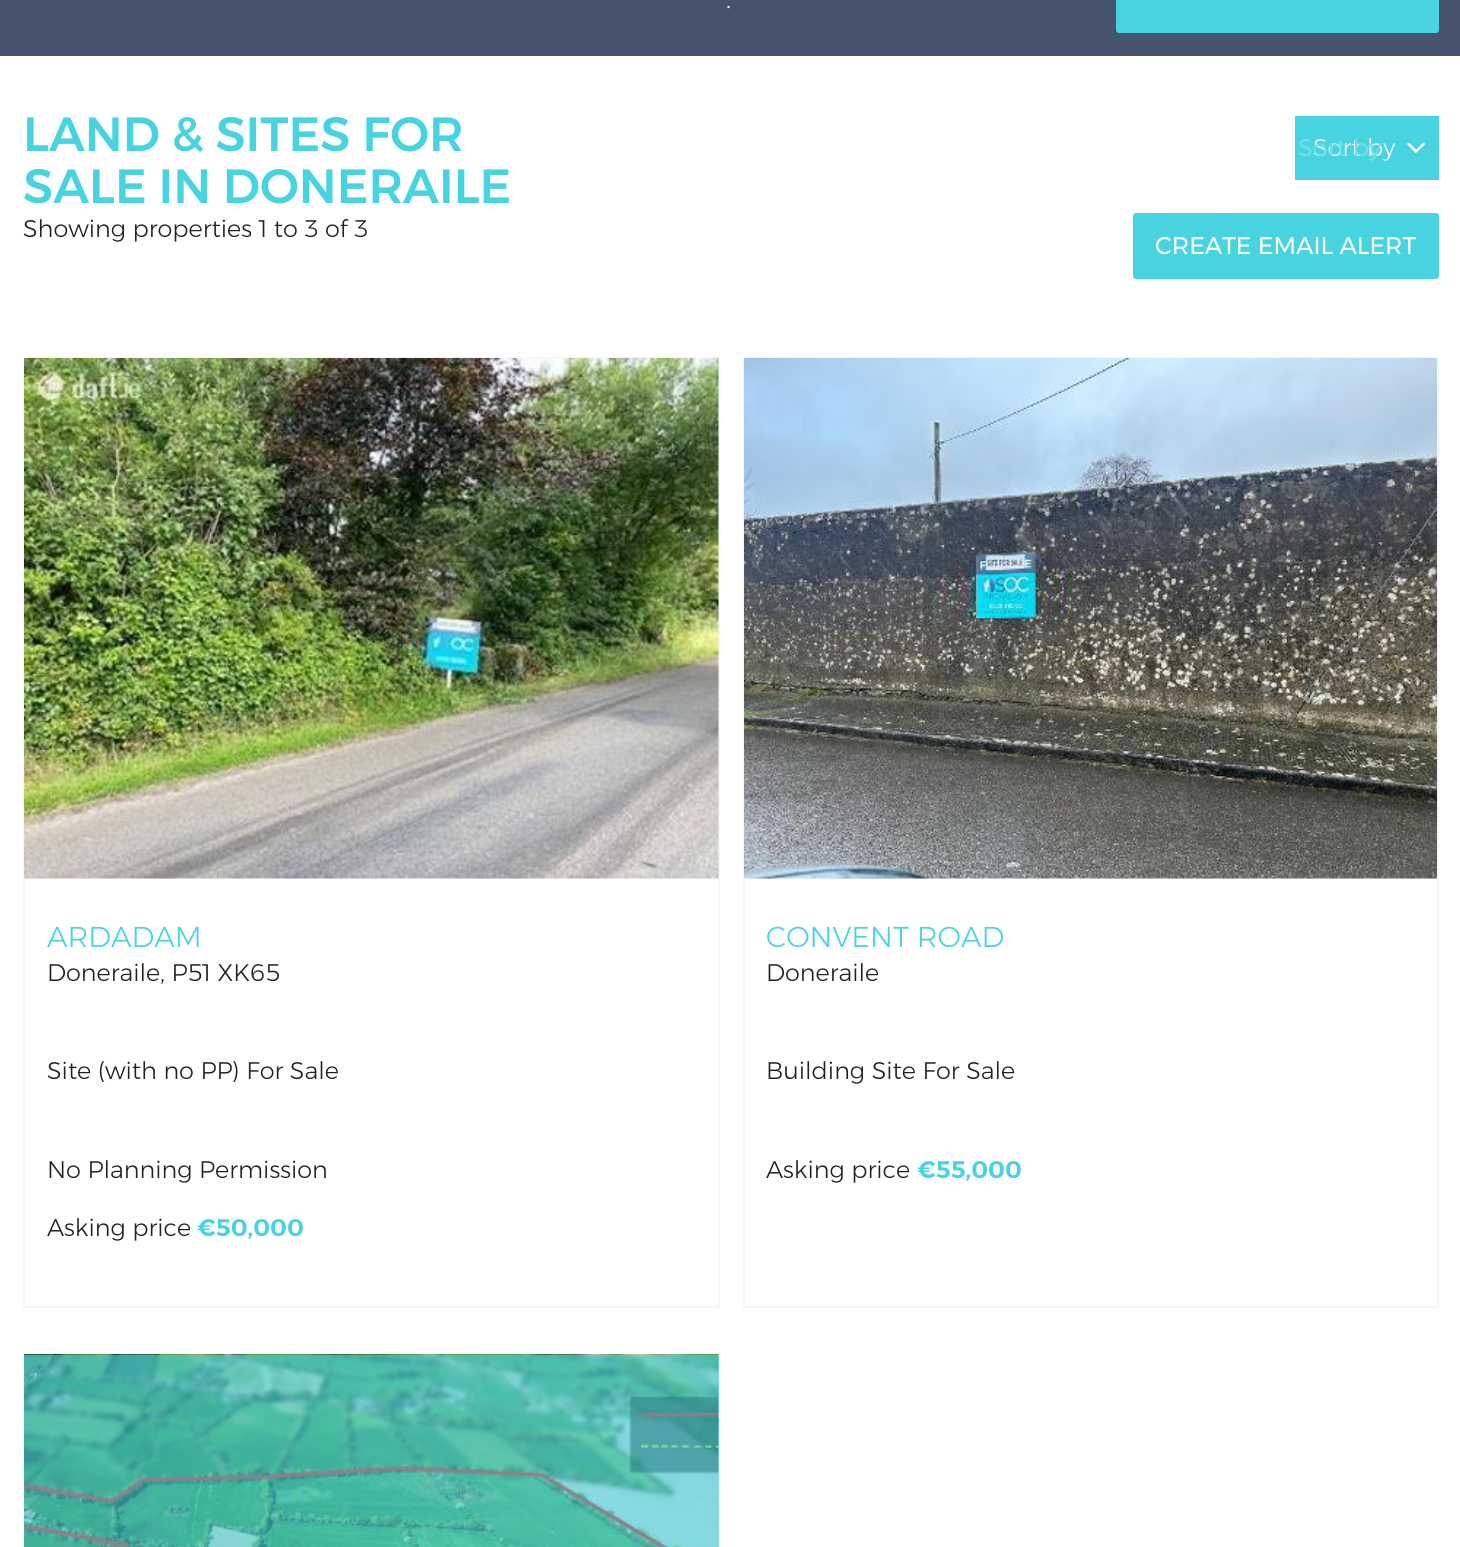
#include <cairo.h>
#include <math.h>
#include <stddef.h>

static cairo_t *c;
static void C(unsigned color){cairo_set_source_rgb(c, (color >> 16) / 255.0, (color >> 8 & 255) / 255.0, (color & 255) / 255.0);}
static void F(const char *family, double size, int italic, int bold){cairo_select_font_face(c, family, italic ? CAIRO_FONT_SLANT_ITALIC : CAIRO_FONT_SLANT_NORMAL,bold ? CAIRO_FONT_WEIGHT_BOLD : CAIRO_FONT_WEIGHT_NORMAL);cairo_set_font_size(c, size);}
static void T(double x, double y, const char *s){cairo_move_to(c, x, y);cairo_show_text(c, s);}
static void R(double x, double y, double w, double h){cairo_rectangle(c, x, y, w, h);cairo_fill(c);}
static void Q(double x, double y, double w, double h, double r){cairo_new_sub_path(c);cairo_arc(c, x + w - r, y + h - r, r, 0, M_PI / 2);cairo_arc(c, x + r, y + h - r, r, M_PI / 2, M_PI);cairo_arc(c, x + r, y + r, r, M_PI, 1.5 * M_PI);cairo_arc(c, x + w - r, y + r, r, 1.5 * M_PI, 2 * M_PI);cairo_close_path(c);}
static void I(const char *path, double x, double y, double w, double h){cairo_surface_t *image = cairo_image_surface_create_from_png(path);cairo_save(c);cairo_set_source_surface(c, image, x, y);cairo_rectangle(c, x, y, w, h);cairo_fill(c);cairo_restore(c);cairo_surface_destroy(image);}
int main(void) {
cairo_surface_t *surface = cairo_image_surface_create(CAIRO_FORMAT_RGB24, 1460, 1547);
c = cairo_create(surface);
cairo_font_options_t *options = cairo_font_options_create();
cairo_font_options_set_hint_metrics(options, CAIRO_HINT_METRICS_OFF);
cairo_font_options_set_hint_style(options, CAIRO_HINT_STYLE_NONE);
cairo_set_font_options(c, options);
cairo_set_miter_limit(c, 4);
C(0xffffff);
cairo_paint(c);
C(0x45546c);
R(0,0,1460,56);
F("Montserrat Light",26,0,0);
C(0xffffff);
T(726,8,".");
C(0x47d4e0);
Q(1116,-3,323,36,3);
cairo_fill(c);
F("Montserrat Medium",48,0,0);
T(23,151,"LAND & SITES FOR");
T(23,203,"SALE IN DONERAILE");
F("Montserrat Light",24,0,0);
C(0x212121);
T(23,237,"Showing properties 1 to 3 of 3");
cairo_rectangle(c,1296,117,142,62);
C(0x47d4e0);
cairo_stroke(c);
R(1297,118,140,60);
C(0xffffff);
T(1313,156,"Sort by");
F("Montserrat",24,0,0);
C(0x6fdde7);
T(1298,156,"Sort by");
I("1.png",1407,143,18,10);
C(0x47d4e0);
Q(1133,213,306,66,3);
cairo_fill(c);
C(0xffffff);
T(1155,254,"CREATE EMAIL ALERT");
cairo_rectangle(c,24,358,695,949);
C(0xf2f7fa);
cairo_stroke(c);
C(0xfafafa);
R(24,359,695,520);
I("2.png",24,358,695,521);
F("Montserrat Light",28.75,0,0);
C(0x47d4e0);
T(47,947,"ARDADAM");
F("Montserrat Light",24,0,0);
C(0x212121);
T(47,981,"Doneraile, P51 XK65");
T(47,1079,"Site (with no PP) For Sale");
T(47,1178,"No Planning Permission");
T(47,1236,"Asking price");
F("Montserrat SemiBold",24,0,0);
C(0x47d4e0);
T(197,1236,"€50,000");
cairo_rectangle(c,744,358,694,949);
C(0xf2f7fa);
cairo_stroke(c);
C(0xfafafa);
R(744,878,693,1);
I("3.png",744,358,693,521);
F("Montserrat Light",28.75,0,0);
C(0x47d4e0);
T(766,947,"CONVENT ROAD");
F("Montserrat Light",24,0,0);
C(0x212121);
T(766,981,"Doneraile");
T(766,1079,"Building Site For Sale");
T(766,1178,"Asking price");
F("Montserrat SemiBold",24,0,0);
C(0x47d4e0);
T(917,1178,"€55,000");
cairo_rectangle(c,24,1354,695,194);
C(0xf2f7fa);
cairo_stroke(c);
C(0xfafafa);
R(718,1355,1,192);
I("4.png",24,1354,695,193);
cairo_set_source_rgba(c,0.278,0.831,0.878,0.6);
R(24,1355,695,192);
cairo_surface_write_to_png(surface, "o.png");
cairo_font_options_destroy(options);
cairo_destroy(c);
cairo_surface_destroy(surface);
return 0;
}
